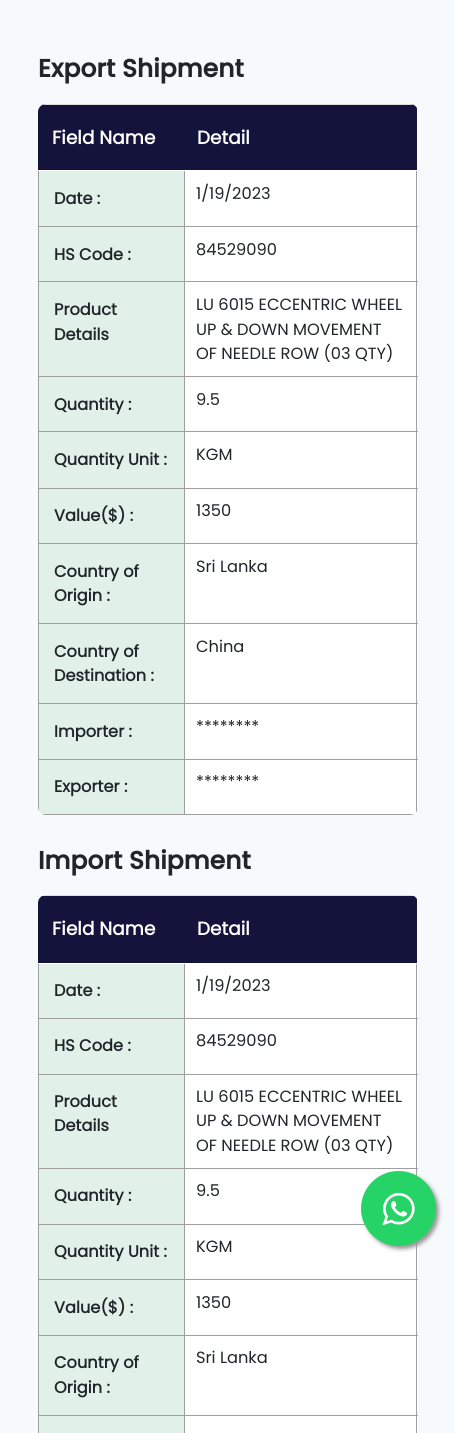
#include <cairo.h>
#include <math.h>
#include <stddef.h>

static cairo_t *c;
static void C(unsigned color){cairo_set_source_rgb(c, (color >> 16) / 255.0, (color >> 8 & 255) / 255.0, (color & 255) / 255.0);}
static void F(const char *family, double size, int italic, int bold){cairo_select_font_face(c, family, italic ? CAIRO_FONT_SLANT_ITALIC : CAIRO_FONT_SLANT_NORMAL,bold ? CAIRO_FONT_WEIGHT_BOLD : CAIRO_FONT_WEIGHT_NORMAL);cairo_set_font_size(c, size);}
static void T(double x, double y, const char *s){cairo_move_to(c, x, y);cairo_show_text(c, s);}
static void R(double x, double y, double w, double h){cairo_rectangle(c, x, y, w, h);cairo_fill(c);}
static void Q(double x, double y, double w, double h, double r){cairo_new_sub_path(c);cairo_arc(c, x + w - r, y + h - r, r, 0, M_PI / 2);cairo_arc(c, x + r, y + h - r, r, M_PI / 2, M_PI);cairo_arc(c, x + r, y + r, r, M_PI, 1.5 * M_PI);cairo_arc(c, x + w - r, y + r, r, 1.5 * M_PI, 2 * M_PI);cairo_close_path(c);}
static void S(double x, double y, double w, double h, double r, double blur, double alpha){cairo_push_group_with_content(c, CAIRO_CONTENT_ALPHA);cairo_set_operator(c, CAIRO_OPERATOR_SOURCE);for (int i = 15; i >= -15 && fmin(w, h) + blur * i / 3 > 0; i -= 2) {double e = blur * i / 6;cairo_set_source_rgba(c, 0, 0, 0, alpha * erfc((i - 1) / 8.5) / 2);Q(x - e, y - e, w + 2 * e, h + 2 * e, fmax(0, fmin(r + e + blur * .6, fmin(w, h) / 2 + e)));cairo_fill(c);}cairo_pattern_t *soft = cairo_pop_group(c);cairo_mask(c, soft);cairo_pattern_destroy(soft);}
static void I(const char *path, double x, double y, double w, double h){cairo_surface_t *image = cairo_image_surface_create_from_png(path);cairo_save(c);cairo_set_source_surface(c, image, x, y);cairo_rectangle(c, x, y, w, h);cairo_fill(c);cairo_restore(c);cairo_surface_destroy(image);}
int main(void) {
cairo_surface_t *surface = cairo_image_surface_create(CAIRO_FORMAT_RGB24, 454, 1433);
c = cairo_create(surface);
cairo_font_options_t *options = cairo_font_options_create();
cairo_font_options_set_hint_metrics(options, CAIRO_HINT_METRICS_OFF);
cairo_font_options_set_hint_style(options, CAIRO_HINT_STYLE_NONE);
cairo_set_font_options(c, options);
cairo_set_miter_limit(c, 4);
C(0xf7fafd);
cairo_paint(c);
F("Poppins",25,0,1);
C(0x212529);
T(38,77,"Export Shipment");
C(0xffffff);
Q(38,104,380,711,8);
cairo_fill(c);
cairo_save(c);
Q(38,104,380,711,8);
cairo_clip(c);
C(0x14133c);
R(39,104,377,66);
R(416,104,1,67);
R(38,104,1,67);
C(0xdddddd);
R(184,104,234,1);
R(38,104,147,1);
cairo_restore(c);
F("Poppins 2",18.5,0,1);
T(52,144,"Field Name");
C(0x9f9f9f);
R(184,226,234,1);
C(0xe1f1e9);
R(39,227,145,149);
C(0x9f9f9f);
R(184,281,234,1);
R(184,376,234,1);
C(0xe1f1e9);
R(39,377,145,111);
C(0x9f9f9f);
R(184,431,234,1);
R(184,488,234,1);
R(184,543,234,1);
R(184,623,234,1);
R(184,703,234,1);
R(184,759,234,1);
cairo_save(c);
Q(38,104,380,711,8);
cairo_clip(c);
R(416,759,1,56);
R(184,814,234,1);
cairo_restore(c);
R(184,759,1,56);
R(38,759,147,1);
R(184,703,1,57);
R(38,703,147,1);
R(184,623,1,81);
R(38,623,147,1);
R(184,543,1,81);
R(38,543,147,1);
R(184,488,1,56);
R(38,488,147,1);
R(184,431,1,58);
R(38,431,147,1);
R(184,376,1,57);
R(38,376,147,1);
R(184,281,1,97);
R(38,281,147,1);
R(184,226,1,57);
R(38,226,147,1);
R(184,170,1,58);
cairo_save(c);
Q(38,104,380,711,8);
cairo_clip(c);
C(0xe1f1e9);
R(39,760,145,55);
C(0x9f9f9f);
R(38,814,147,1);
R(38,759,1,56);
cairo_restore(c);
R(38,703,1,57);
R(38,623,1,81);
R(38,543,1,81);
R(38,488,1,56);
R(38,431,1,58);
R(38,376,1,57);
R(38,281,1,97);
R(38,170,1,113);
R(416,703,1,57);
R(416,623,1,81);
R(416,543,1,81);
R(416,488,1,56);
R(416,431,1,58);
R(416,376,1,57);
R(416,281,1,97);
R(416,170,1,113);
C(0xffffff);
R(38,170,380,1);
T(197,144,"Detail");
C(0xe1f1e9);
R(39,171,145,55);
F("Poppins 2",16.25,0,1);
C(0x212529);
T(54,204,"Date :");
F("Poppins",16.25,0,0);
T(196,199,"1/19/2023");
F("Poppins 2",16.25,0,1);
T(54,260,"HS Code :");
F("Poppins",16.25,0,0);
T(196,255,"84529090");
F("Poppins 2",16.25,0,1);
T(54,315,"Product");
T(54,340,"Details");
F("Poppins",16.25,0,0);
T(196,310,"LU 6015 ECCENTRIC WHEEL");
T(196,335,"UP & DOWN MOVEMENT");
T(196,359,"OF NEEDLE ROW (03 QTY)");
F("Poppins 2",16.25,0,1);
T(54,410,"Quantity :");
F("Poppins",16.25,0,0);
T(196,405,"9.5");
F("Poppins 2",16.25,0,1);
T(54,465,"Quantity Unit :");
F("Poppins",16.25,0,0);
T(196,460,"KGM");
C(0xe1f1e9);
R(39,489,145,54);
F("Poppins 2",16.25,0,1);
C(0x212529);
T(54,521,"Value($) :");
F("Poppins",16.25,0,0);
T(196,516,"1350");
C(0xe1f1e9);
R(39,544,145,79);
F("Poppins 2",16.25,0,1);
C(0x212529);
T(54,577,"Country of");
T(54,601,"Origin :");
F("Poppins",16.25,0,0);
T(196,572,"Sri Lanka");
C(0xe1f1e9);
R(39,624,145,79);
F("Poppins 2",16.25,0,1);
C(0x212529);
T(54,657,"Country of");
T(54,681,"Destination :");
F("Poppins",16.25,0,0);
T(196,652,"China");
T(196,732,"********");
C(0xe1f1e9);
R(39,704,145,55);
F("Poppins 2",16.25,0,1);
C(0x212529);
T(54,737,"Importer :");
F("Poppins",16.25,0,0);
T(196,787,"********");
F("Poppins 2",16.25,0,1);
T(54,792,"Exporter :");
F("Poppins",25,0,1);
T(38,869,"Import Shipment");
C(0xffffff);
Q(38,895,380,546,8);
cairo_fill(c);
cairo_save(c);
Q(38,895,380,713,8);
cairo_clip(c);
C(0x14133c);
R(39,896,377,67);
R(416,895,1,69);
R(38,895,1,69);
C(0xdddddd);
R(184,895,234,1);
R(38,895,147,1);
cairo_restore(c);
C(0x9f9f9f);
R(184,1018,234,1);
R(184,1074,234,1);
R(184,1168,234,1);
R(184,1224,181,1);
R(184,1279,234,1);
R(184,1335,234,1);
R(184,1415,234,1);
R(184,1415,1,18);
R(38,1415,147,1);
R(184,1335,1,81);
R(38,1335,147,1);
R(184,1279,1,57);
R(38,1279,147,1);
R(184,1224,1,56);
R(38,1224,147,1);
R(184,1168,1,57);
R(38,1168,147,1);
R(184,1074,1,95);
R(38,1074,147,1);
R(184,1018,1,57);
R(38,1018,147,1);
R(38,1415,1,18);
R(38,1335,1,81);
R(38,1279,1,57);
R(38,1224,1,56);
R(38,1168,1,57);
R(38,1074,1,95);
R(38,963,1,112);
C(0xffffff);
R(38,963,1,1);
F("Poppins 2",18.5,0,1);
T(52,935,"Field Name");
C(0x9f9f9f);
R(184,963,1,56);
R(416,1168,1,8);
R(416,1074,1,95);
R(416,963,1,112);
C(0xffffff);
R(184,963,234,1);
T(197,935,"Detail");
C(0xe1f1e9);
R(39,964,145,54);
F("Poppins 2",16.25,0,1);
C(0x212529);
T(54,996,"Date :");
F("Poppins",16.25,0,0);
T(196,991,"1/19/2023");
C(0xe1f1e9);
R(39,1019,145,55);
F("Poppins 2",16.25,0,1);
C(0x212529);
T(54,1051,"HS Code :");
F("Poppins",16.25,0,0);
T(196,1046,"84529090");
C(0xe1f1e9);
R(39,1075,145,93);
F("Poppins 2",16.25,0,1);
C(0x212529);
T(54,1107,"Product");
T(54,1131,"Details");
F("Poppins",16.25,0,0);
T(196,1102,"LU 6015 ECCENTRIC WHEEL");
T(196,1126,"UP & DOWN MOVEMENT");
T(196,1151,"OF NEEDLE ROW (03 QTY)");
C(0xe1f1e9);
R(39,1169,145,55);
F("Poppins 2",16.25,0,1);
C(0x212529);
T(54,1201,"Quantity :");
F("Poppins",16.25,0,0);
T(196,1196,"9.5");
C(0xe1f1e9);
R(39,1225,145,54);
F("Poppins 2",16.25,0,1);
C(0x212529);
T(54,1257,"Quantity Unit :");
F("Poppins",16.25,0,0);
T(196,1252,"KGM");
C(0xe1f1e9);
R(39,1280,145,55);
F("Poppins 2",16.25,0,1);
C(0x212529);
T(54,1313,"Value($) :");
C(0x9f9f9f);
R(416,1415,1,18);
R(416,1335,1,81);
R(416,1241,1,95);
F("Poppins",16.25,0,0);
C(0x212529);
T(196,1308,"1350");
C(0xe1f1e9);
R(39,1336,145,79);
F("Poppins 2",16.25,0,1);
C(0x212529);
T(54,1368,"Country of");
T(54,1393,"Origin :");
F("Poppins",16.25,0,0);
T(196,1363,"Sri Lanka");
C(0xe1f1e9);
R(39,1416,145,17);
C(0x999999);
S(364,1174,75,75,37.5,2,1);
C(0x25d366);
cairo_arc(c,398.5,1208.5,37.5,0,2 * M_PI);
cairo_fill(c);
I("1.png",382,1192,33,34);
cairo_surface_write_to_png(surface, "o.png");
cairo_font_options_destroy(options);
cairo_destroy(c);
cairo_surface_destroy(surface);
return 0;
}
